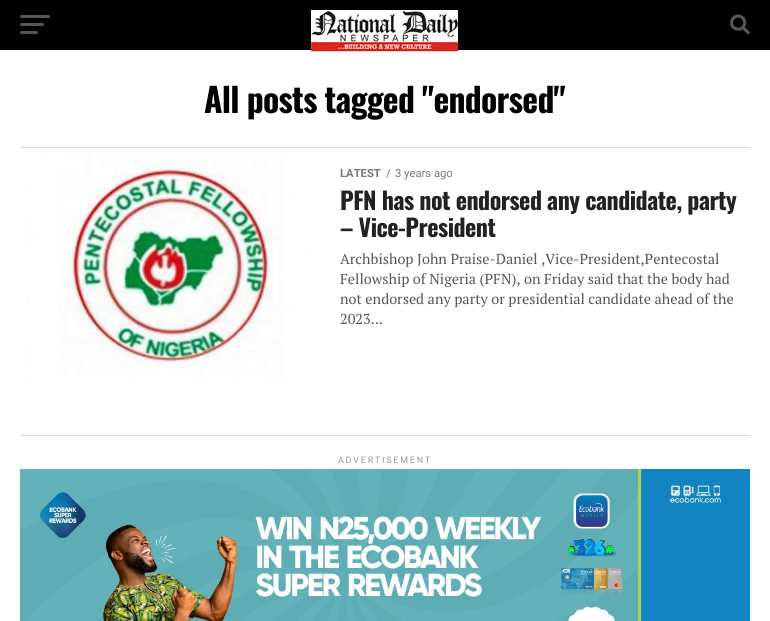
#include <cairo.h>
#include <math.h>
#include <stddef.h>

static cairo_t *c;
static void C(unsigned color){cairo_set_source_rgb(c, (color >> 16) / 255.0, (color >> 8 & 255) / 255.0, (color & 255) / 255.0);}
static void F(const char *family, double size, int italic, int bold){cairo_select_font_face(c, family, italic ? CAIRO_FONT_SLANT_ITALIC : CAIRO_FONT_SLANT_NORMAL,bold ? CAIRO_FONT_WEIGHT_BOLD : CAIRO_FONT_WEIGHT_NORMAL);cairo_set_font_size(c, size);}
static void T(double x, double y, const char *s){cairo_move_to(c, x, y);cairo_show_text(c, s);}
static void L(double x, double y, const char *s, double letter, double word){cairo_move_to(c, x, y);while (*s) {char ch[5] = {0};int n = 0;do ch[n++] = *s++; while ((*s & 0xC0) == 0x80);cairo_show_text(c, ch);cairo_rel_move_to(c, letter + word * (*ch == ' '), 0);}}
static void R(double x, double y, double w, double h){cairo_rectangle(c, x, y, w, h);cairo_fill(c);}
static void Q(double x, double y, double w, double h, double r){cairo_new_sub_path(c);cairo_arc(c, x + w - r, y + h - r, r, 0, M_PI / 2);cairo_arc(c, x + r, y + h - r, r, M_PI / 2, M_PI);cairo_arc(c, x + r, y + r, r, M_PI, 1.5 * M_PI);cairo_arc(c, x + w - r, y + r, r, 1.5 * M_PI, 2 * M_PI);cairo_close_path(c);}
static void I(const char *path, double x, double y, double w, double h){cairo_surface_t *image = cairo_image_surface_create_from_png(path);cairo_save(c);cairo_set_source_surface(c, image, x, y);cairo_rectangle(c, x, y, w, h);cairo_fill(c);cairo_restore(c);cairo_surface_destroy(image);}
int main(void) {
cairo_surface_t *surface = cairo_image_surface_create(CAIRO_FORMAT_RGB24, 770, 621);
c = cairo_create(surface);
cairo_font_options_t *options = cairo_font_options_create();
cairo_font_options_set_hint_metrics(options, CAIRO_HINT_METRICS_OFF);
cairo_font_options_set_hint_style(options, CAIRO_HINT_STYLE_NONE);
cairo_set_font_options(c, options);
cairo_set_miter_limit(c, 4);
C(0xffffff);
cairo_paint(c);
C(0x000000);
R(0,0,770,50);
C(0x555555);
Q(20,15,30,3,1.5);
cairo_fill(c);
Q(20,23,24,3,1.5);
cairo_fill(c);
Q(20,31,18,3,1.5);
cairo_fill(c);
I("1.png",311,10,147,47);
I("2.png",730,14,20,21);
F("Oswald",33.6,0,1);
C(0x000000);
L(204,113,"All posts tagged \"endorsed\"",-.7,0);
C(0xdddddd);
R(20,147,730,1);
I("3.png",20,148,300,237);
F("Roboto",11.25,0,1);
C(0x777777);
T(340,177,"LATEST");
F("Roboto",11.25,0,0);
T(386,177,"/");
T(395,177,"3 years ago");
F("Oswald",24,0,1);
C(0x222222);
L(340,210,"PFN has not endorsed any candidate, party",-.5,0);
L(340,237,"– Vice-President",-.5,0);
F("PT Serif",14.4,0,0);
C(0x555555);
T(340,264,"Archbishop John Praise-Daniel ,Vice-President,Pentecostal");
T(340,284,"Fellowship of Nigeria (PFN), on Friday said that the body had");
T(340,304,"not endorsed any party or presidential candidate ahead of the");
T(340,324,"2023...");
C(0xdddddd);
R(20,435,730,1);
F("Roboto",9,0,0);
C(0x999999);
L(338,463,"ADVERTISEMENT",1.75,0);
I("4.png",20,469,730,152);
cairo_surface_write_to_png(surface, "o.png");
cairo_font_options_destroy(options);
cairo_destroy(c);
cairo_surface_destroy(surface);
return 0;
}
